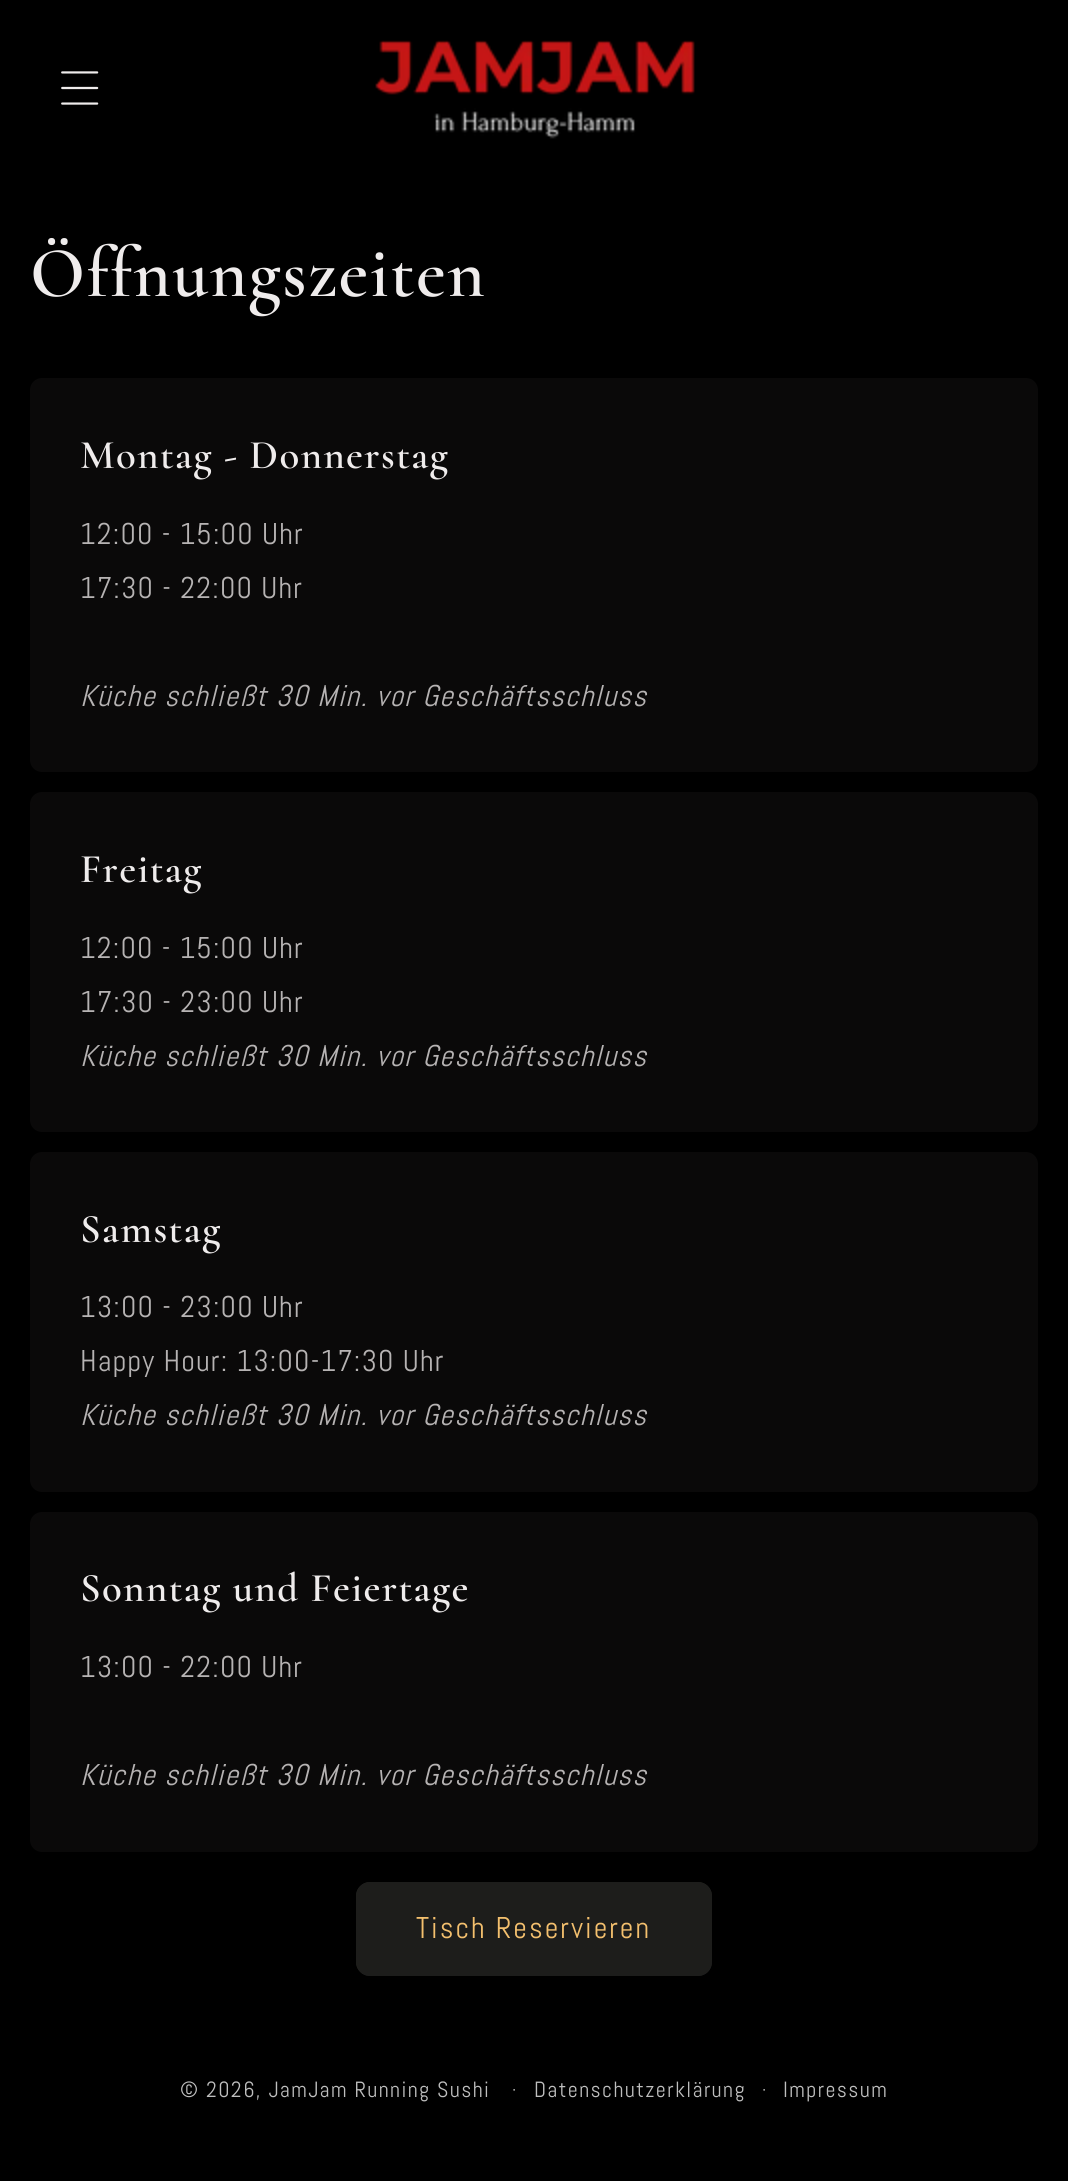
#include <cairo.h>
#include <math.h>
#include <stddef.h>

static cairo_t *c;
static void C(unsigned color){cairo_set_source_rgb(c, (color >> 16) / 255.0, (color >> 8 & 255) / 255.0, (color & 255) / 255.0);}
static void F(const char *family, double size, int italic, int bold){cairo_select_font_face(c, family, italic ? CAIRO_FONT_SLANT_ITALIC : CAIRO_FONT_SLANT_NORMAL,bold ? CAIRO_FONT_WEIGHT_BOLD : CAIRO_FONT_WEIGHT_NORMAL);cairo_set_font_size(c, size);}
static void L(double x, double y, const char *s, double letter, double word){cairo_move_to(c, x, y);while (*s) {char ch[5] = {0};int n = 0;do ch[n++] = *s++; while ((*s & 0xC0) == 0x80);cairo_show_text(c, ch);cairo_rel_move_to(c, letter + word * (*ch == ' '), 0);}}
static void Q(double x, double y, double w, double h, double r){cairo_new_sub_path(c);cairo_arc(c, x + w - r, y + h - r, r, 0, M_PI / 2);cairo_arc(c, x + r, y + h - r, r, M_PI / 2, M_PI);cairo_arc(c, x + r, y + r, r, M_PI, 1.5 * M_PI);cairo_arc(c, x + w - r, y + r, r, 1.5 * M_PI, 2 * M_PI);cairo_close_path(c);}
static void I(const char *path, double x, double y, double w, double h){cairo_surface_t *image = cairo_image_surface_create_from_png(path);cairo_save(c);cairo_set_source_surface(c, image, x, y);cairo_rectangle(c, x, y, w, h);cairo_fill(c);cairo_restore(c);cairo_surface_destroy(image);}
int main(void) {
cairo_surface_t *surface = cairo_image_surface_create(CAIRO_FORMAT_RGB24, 1068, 2181);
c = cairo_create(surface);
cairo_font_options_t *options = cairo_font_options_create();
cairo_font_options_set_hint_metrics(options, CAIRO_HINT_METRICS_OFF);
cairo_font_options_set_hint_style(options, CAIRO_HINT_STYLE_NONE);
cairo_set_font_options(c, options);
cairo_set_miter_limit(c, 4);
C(0x000000);
cairo_paint(c);
I("1.png",61,71,38,34);
I("2.png",375,40,320,99);
F("Cormorant SemiBold",72,0,0);
C(0xefecec);
L(30,296,"Öffnungszeiten",1.4,0);
C(0x0a0909);
Q(30,378,1008,394,12);
cairo_fill(c);
F("Cormorant SemiBold",40.75,0,0);
C(0xefecec);
L(80,468,"Montag - Donnerstag",1.4,0);
F("Abel",30,0,0);
C(0xb6b3b3);
L(80,544,"12:00 - 15:00 Uhr",1.2,0);
L(80,598,"17:30 - 22:00 Uhr",1.2,0);
F("Abel",30,1,0);
L(80,706,"Küche schließt 30 Min. vor Geschäftsschluss",1.2,0);
C(0x0a0909);
Q(30,792,1008,340,12);
cairo_fill(c);
F("Cormorant SemiBold",40.75,0,0);
C(0xefecec);
L(80,882,"Freitag",1.4,0);
F("Abel",30,0,0);
C(0xb6b3b3);
L(80,958,"12:00 - 15:00 Uhr",1.2,0);
L(80,1012,"17:30 - 23:00 Uhr",1.2,0);
F("Abel",30,1,0);
L(80,1066,"Küche schließt 30 Min. vor Geschäftsschluss",1.2,0);
C(0x0a0909);
Q(30,1152,1008,340,12);
cairo_fill(c);
F("Cormorant SemiBold",40.75,0,0);
C(0xefecec);
L(80,1242,"Samstag",1.4,0);
F("Abel",30,0,0);
C(0xb6b3b3);
L(80,1317,"13:00 - 23:00 Uhr",1.2,0);
L(80,1371,"Happy Hour: 13:00-17:30 Uhr",1.2,0);
F("Abel",30,1,0);
L(80,1425,"Küche schließt 30 Min. vor Geschäftsschluss",1.2,0);
C(0x0a0909);
Q(30,1512,1008,340,12);
cairo_fill(c);
F("Cormorant SemiBold",40.75,0,0);
C(0xefecec);
L(80,1601,"Sonntag und Feiertage",1.4,0);
F("Abel",30,0,0);
C(0xb6b3b3);
L(80,1677,"13:00 - 22:00 Uhr",1.2,0);
F("Abel",30,1,0);
L(80,1785,"Küche schließt 30 Min. vor Geschäftsschluss",1.2,0);
C(0x1d1d1b);
Q(356,1882,356,94,14);
cairo_fill(c);
Q(357,1883,354,92,13);
cairo_stroke(c);
F("Abel",30,0,0);
C(0xf4c06e);
L(416,1938,"Tisch Reservieren",2,0);
F("Abel",22,0,0);
C(0xbfbfbf);
L(180,2097,"© 2026, JamJam Running Sushi",1.4,0);
F("Abel",20,0,0);
L(512,2097,"·",1.4,0);
F("Abel",22,0,0);
L(534,2097,"Datenschutzerklärung",1.4,0);
F("Abel",20,0,0);
L(762,2097,"·",1.4,0);
F("Abel",22,0,0);
L(783,2097,"Impressum",1.4,0);
cairo_surface_write_to_png(surface, "o.png");
cairo_font_options_destroy(options);
cairo_destroy(c);
cairo_surface_destroy(surface);
return 0;
}
